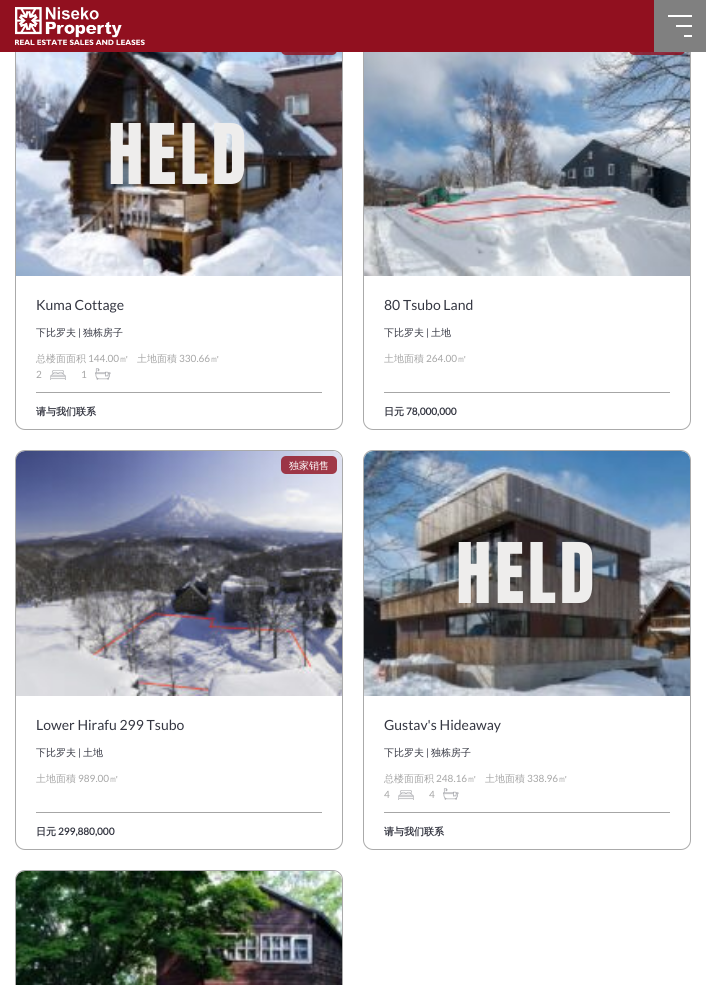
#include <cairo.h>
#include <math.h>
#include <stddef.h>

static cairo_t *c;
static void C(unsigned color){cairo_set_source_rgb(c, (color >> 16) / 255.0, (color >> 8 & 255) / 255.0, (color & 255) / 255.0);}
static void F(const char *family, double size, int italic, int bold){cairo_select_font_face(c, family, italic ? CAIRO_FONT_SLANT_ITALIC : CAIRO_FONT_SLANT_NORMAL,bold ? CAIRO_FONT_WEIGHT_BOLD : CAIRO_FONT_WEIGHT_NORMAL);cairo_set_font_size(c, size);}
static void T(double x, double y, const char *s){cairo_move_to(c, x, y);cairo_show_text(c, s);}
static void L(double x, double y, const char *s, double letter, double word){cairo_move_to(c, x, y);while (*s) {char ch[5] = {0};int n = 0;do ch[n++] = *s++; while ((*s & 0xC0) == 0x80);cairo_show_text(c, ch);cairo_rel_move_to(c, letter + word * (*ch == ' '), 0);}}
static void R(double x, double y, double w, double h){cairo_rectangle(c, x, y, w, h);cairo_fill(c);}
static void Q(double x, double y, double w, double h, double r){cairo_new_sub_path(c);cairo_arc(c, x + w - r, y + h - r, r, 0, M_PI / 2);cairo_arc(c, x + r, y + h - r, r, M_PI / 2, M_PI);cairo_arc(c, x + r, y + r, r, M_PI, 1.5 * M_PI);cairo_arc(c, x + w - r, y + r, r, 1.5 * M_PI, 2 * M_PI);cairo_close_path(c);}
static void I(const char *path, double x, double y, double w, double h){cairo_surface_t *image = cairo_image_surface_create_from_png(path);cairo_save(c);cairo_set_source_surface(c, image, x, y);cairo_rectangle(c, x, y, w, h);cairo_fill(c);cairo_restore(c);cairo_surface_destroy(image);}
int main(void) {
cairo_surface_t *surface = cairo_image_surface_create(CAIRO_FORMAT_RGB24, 706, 985);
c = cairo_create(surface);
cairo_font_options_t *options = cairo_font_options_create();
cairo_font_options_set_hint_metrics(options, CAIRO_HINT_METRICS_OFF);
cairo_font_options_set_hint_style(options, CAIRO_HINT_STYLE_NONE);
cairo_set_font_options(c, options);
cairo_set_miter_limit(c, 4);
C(0xffffff);
cairo_paint(c);
Q(15.5,31.5,327,398,9.5);
C(0xaaaaaa);
cairo_set_line_width(c,1);
cairo_stroke(c);
I("2.png",16,52,326,224);
cairo_set_source_rgba(c,0.569,0.063,0.122,0.8);
Q(281,37,56,18,5);
cairo_fill(c);
Q(363.5,31.5,327,398,9.5);
C(0xaaaaaa);
cairo_stroke(c);
I("5.png",364,52,326,224);
cairo_set_source_rgba(c,0.569,0.063,0.122,0.8);
Q(629,37,56,18,5);
cairo_fill(c);
C(0x91101f);
R(0,0,654,52);
I("1.png",15,7,130,38);
C(0x808080);
R(654,0,52,52);
C(0xffffff);
R(668,15,24,2);
R(676,25,16,2);
R(684,35,8,2);
F("Anton",71,0,0);
C(0xeeedec);
L(108,184,"HELD",3.5,0);
F("Lato",14,0,0);
C(0x353742);
T(36,310,"Kuma Cottage");
F("WenQuanYi Zen Hei Medium",10,0,0);
T(36,336,"下比罗夫");
F("Lato",10,0,0);
T(78,336,"|");
F("WenQuanYi Zen Hei Medium",10,0,0);
T(83,336,"独栋房子");
C(0xa6a6a6);
T(36,362,"总楼面面积");
F("Lato",10,0,0);
T(88,362,"144.00");
F("WenQuanYi Zen Hei Medium",10,0,0);
T(119,362,"㎡");
T(137,362,"土地面積");
F("Lato",10,0,0);
T(179,362,"330.66");
F("WenQuanYi Zen Hei Medium",10,0,0);
T(210,362,"㎡");
F("Lato",10,0,0);
T(36,378,"2");
I("3.png",50,370,16,10);
T(81,378,"1");
I("4.png",95,368,16,12);
R(36,392,286,1);
F("WenQuanYi Zen Hei",10,0,1);
C(0x353742);
T(36,415,"请与我们联系");
F("Lato",14,0,0);
T(384,310,"80 Tsubo Land");
F("WenQuanYi Zen Hei Medium",10,0,0);
T(384,336,"下比罗夫");
F("Lato",10,0,0);
T(426,336,"|");
F("WenQuanYi Zen Hei Medium",10,0,0);
T(431,336,"土地");
C(0xa6a6a6);
T(384,362,"土地面積");
F("Lato",10,0,0);
T(426,362,"264.00");
F("WenQuanYi Zen Hei Medium",10,0,0);
T(457,362,"㎡");
R(384,392,286,1);
F("WenQuanYi Zen Hei",10,0,1);
C(0x353742);
T(384,415,"日元");
F("Lato",10,0,1);
T(406,415,"78,000,000");
Q(15.5,450.5,327,399,9.5);
C(0xaaaaaa);
cairo_stroke(c);
I("6.png",16,451,326,245);
cairo_set_source_rgba(c,0.569,0.063,0.122,0.8);
Q(281,456,56,18,5);
cairo_fill(c);
F("WenQuanYi Zen Hei Medium",10,0,0);
C(0xffffff);
T(289,469,"独家销售");
F("Lato",14,0,0);
C(0x353742);
T(36,730,"Lower Hirafu 299 Tsubo");
F("WenQuanYi Zen Hei Medium",10,0,0);
T(36,756,"下比罗夫");
F("Lato",10,0,0);
T(78,756,"|");
F("WenQuanYi Zen Hei Medium",10,0,0);
T(83,756,"土地");
C(0xa6a6a6);
T(36,782,"土地面積");
F("Lato",10,0,0);
T(78,782,"989.00");
F("WenQuanYi Zen Hei Medium",10,0,0);
T(109,782,"㎡");
R(36,812,286,1);
F("WenQuanYi Zen Hei",10,0,1);
C(0x353742);
T(36,835,"日元");
F("Lato",10,0,1);
T(58,835,"299,880,000");
Q(363.5,450.5,327,399,9.5);
C(0xaaaaaa);
cairo_stroke(c);
I("7.png",364,451,326,245);
F("Anton",71,0,0);
C(0xeeedec);
L(456,603,"HELD",3.5,0);
F("Lato",14,0,0);
C(0x353742);
T(384,730,"Gustav's Hideaway");
F("WenQuanYi Zen Hei Medium",10,0,0);
T(384,756,"下比罗夫");
F("Lato",10,0,0);
T(426,756,"|");
F("WenQuanYi Zen Hei Medium",10,0,0);
T(431,756,"独栋房子");
C(0xa6a6a6);
T(384,782,"总楼面面积");
F("Lato",10,0,0);
T(436,782,"248.16");
F("WenQuanYi Zen Hei Medium",10,0,0);
T(467,782,"㎡");
T(485,782,"土地面積");
F("Lato",10,0,0);
T(527,782,"338.96");
F("WenQuanYi Zen Hei Medium",10,0,0);
T(558,782,"㎡");
F("Lato",10,0,0);
T(384,798,"4");
I("3.png",398,790,16,10);
T(429,798,"4");
I("4.png",443,788,16,12);
R(384,812,286,1);
F("WenQuanYi Zen Hei",10,0,1);
C(0x353742);
T(384,835,"请与我们联系");
Q(15.5,870.5,327,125,9.5);
C(0xaaaaaa);
cairo_stroke(c);
I("8.png",16,871,326,114);
cairo_surface_write_to_png(surface, "o.png");
cairo_font_options_destroy(options);
cairo_destroy(c);
cairo_surface_destroy(surface);
return 0;
}
